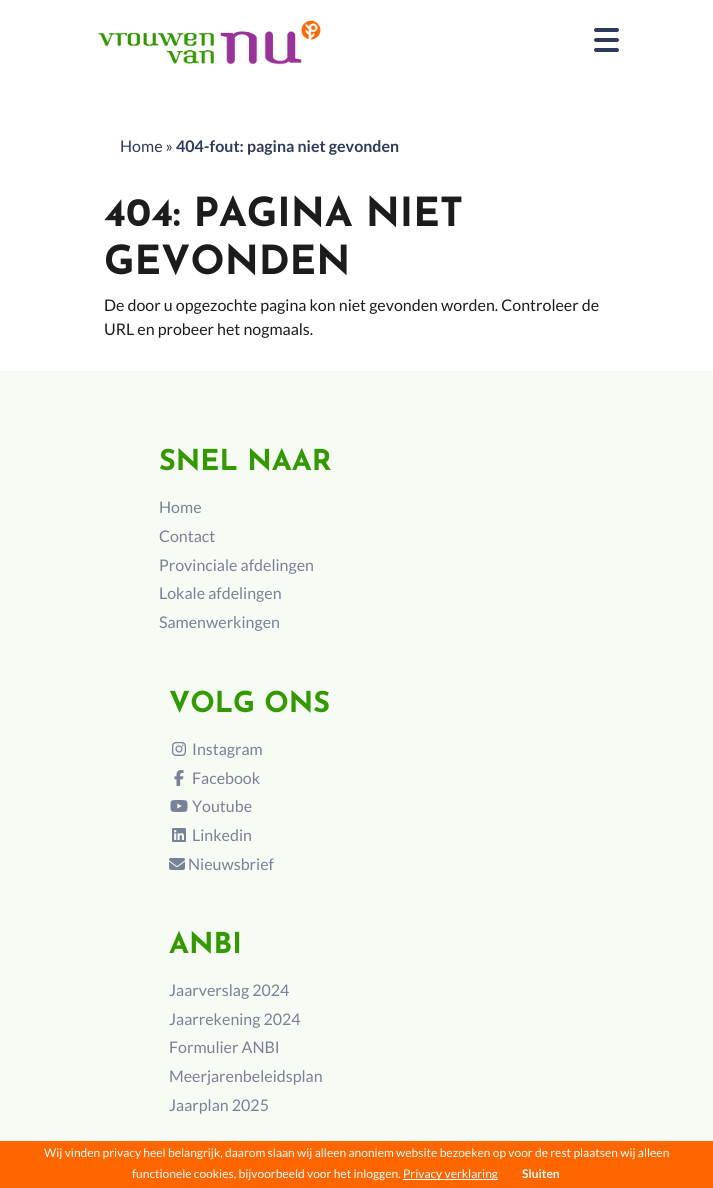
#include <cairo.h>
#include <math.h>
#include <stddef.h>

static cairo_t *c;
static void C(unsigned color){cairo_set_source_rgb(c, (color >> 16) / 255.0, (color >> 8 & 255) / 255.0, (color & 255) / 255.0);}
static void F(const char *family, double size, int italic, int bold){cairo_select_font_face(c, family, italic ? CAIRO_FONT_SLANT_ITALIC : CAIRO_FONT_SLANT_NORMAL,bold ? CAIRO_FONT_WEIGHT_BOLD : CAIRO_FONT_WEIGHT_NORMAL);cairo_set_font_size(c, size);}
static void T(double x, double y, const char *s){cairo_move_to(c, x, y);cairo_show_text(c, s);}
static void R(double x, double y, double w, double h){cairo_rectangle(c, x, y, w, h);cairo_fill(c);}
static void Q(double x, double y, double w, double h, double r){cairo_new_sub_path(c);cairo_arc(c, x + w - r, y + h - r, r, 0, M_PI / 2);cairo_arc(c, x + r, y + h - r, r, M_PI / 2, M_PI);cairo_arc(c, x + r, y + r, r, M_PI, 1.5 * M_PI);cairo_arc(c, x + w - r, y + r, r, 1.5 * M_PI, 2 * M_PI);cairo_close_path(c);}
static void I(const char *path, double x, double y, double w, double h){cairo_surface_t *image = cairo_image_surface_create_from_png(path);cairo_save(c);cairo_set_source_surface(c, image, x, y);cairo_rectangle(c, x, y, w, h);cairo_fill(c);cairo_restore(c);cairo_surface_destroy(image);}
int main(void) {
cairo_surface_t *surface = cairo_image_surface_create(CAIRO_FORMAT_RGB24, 713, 1188);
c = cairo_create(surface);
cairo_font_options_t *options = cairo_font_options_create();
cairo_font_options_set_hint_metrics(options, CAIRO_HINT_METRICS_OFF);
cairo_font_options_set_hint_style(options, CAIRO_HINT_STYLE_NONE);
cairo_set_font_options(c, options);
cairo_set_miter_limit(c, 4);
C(0xffffff);
cairo_paint(c);
I("1.png",98,20,223,45);
C(0x2f3b5c);
Q(594,28,25,4,2);
cairo_fill(c);
Q(594,38,25,4,2);
cairo_fill(c);
Q(594,48,25,4,2);
cairo_fill(c);
F("Lato",16,0,0);
T(120,152,"Home »");
F("Lato",16,0,1);
T(176,152,"404-fout: pagina niet gevonden");
F("Josefin Sans",40,0,1);
C(0x1c1c1c);
T(104,226,"404: PAGINA NIET");
T(104,274,"GEVONDEN");
F("Lato",16,0,0);
T(104,311,"De door u opgezochte pagina kon niet gevonden worden. Controleer de");
T(104,335,"URL en probeer het nogmaals.");
C(0xf6fbf3);
R(0,371,713,770);
F("Josefin Sans",28.75,0,1);
C(0x329900);
T(159,470,"SNEL NAAR");
F("Lato",16,0,0);
C(0x798198);
T(159,513,"Home");
T(159,542,"Contact");
T(159,571,"Provinciale afdelingen");
T(159,599,"Lokale afdelingen");
T(159,628,"Samenwerkingen");
F("Josefin Sans",28.75,0,1);
C(0x329900);
T(169,712,"VOLG ONS");
I("2.png",172,742,14,14);
F("Lato",16,0,0);
C(0x798198);
T(192,755,"Instagram");
I("3.png",174,770,10,16);
T(192,784,"Facebook");
I("4.png",170,800,18,12);
T(192,812,"Youtube");
I("5.png",172,828,14,14);
T(192,841,"Linkedin");
I("6.png",169,858,16,12);
T(188,870,"Nieuwsbrief");
F("Josefin Sans",28.75,0,1);
C(0x329900);
T(169,953,"ANBI");
F("Lato",16,0,0);
C(0x798198);
T(169,996,"Jaarverslag 2024");
T(169,1025,"Jaarrekening 2024");
T(169,1053,"Formulier ANBI");
T(169,1082,"Meerjarenbeleidsplan");
T(169,1111,"Jaarplan 2025");
C(0xff6600);
R(0,1141,713,47);
F("Lato",12,0,0);
C(0xffffff);
T(44,1157,"Wij vinden privacy heel belangrijk, daarom slaan wij alleen anoniem website bezoeken op voor de rest plaatsen wij alleen");
T(132,1178,"functionele cookies, bijvoorbeeld voor het inloggen.");
R(403,1179,95,1);
T(403,1178,"Privacy verklaring");
F("Lato",12,0,1);
T(522,1178,"Sluiten");
cairo_surface_write_to_png(surface, "o.png");
cairo_font_options_destroy(options);
cairo_destroy(c);
cairo_surface_destroy(surface);
return 0;
}
